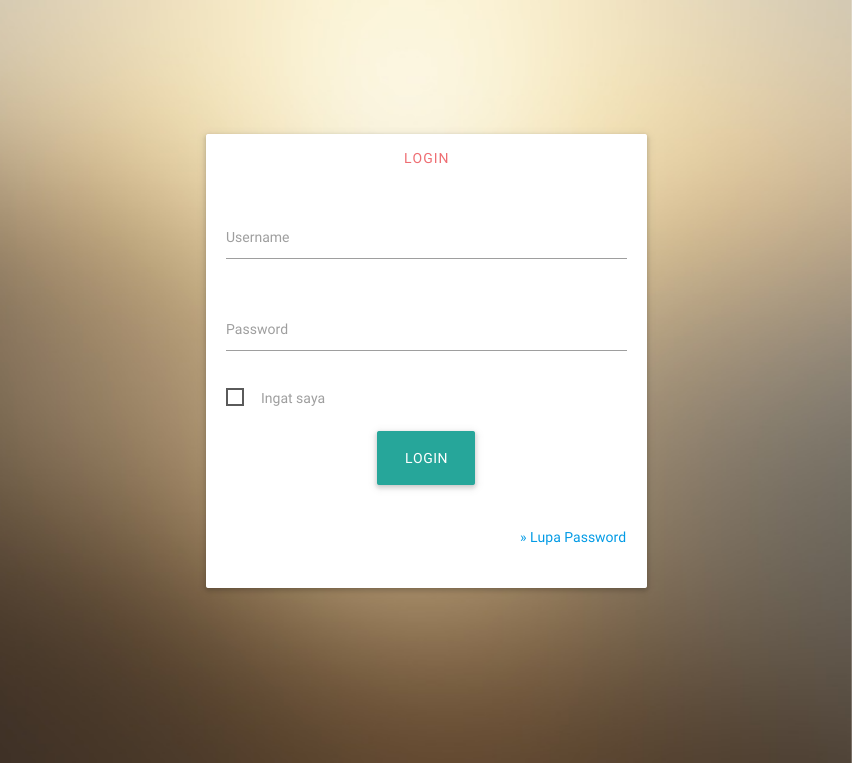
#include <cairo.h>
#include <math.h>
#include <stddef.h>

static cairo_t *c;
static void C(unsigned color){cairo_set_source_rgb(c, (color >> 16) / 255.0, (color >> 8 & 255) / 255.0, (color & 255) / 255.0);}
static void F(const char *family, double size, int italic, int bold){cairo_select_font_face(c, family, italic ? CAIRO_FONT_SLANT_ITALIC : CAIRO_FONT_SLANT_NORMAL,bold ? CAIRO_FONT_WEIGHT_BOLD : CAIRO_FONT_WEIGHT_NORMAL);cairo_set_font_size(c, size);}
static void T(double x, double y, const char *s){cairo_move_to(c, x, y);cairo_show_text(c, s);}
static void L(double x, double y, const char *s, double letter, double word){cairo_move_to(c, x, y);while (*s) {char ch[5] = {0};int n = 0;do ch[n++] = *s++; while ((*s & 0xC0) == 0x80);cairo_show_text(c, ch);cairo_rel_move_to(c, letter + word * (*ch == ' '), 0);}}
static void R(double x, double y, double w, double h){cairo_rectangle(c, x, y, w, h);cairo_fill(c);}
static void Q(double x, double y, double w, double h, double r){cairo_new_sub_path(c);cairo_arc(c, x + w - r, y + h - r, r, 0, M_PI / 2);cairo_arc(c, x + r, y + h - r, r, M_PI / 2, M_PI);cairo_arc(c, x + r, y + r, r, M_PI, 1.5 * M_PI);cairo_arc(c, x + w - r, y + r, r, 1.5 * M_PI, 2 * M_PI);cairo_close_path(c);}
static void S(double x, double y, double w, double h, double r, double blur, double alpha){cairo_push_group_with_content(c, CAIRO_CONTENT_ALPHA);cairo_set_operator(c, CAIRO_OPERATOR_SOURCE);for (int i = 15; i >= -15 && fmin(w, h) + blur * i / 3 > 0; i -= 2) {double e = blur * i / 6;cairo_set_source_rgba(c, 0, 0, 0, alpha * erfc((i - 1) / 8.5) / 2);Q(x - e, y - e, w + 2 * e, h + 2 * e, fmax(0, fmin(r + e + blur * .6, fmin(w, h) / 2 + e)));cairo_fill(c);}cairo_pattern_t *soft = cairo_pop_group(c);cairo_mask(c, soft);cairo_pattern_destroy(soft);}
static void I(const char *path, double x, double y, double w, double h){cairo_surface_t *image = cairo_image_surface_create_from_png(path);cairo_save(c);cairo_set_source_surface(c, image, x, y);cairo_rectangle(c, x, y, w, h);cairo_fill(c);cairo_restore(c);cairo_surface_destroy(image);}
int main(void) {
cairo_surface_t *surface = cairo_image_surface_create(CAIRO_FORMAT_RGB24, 852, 763);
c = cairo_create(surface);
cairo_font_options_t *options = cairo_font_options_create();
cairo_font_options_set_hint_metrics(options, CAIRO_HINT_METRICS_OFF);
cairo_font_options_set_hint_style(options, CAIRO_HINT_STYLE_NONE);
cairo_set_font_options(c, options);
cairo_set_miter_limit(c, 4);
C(0xffffff);
cairo_paint(c);
I("1.png",0,0,852,763);
C(0x000000);
S(206,136,441,454,2,5,.12);
S(206,136,441,454,2,2.5,.16);
C(0xffffff);
Q(206,134,441,454,2);
cairo_fill(c);
F("Roboto",14,0,0);
C(0xee6e73);
L(404,163,"LOGIN",1,0);
C(0x9e9e9e);
T(226,242,"Username");
R(226,258,401,1);
T(226,334,"Password");
R(226,350,401,1);
cairo_rectangle(c,227,389,16,16);
C(0x5a5a5a);
cairo_stroke(c);
C(0x9e9e9e);
T(261,403,"Ingat saya");
C(0x000000);
S(377,433,98,54,2,5,.12);
S(377,433,98,54,2,2.5,.16);
C(0x26a69a);
Q(377,431,98,54,2);
cairo_fill(c);
C(0xffffff);
L(405,463,"LOGIN",.5,0);
C(0x039be5);
T(520,542,"» Lupa Password");
cairo_surface_write_to_png(surface, "o.png");
cairo_font_options_destroy(options);
cairo_destroy(c);
cairo_surface_destroy(surface);
return 0;
}
